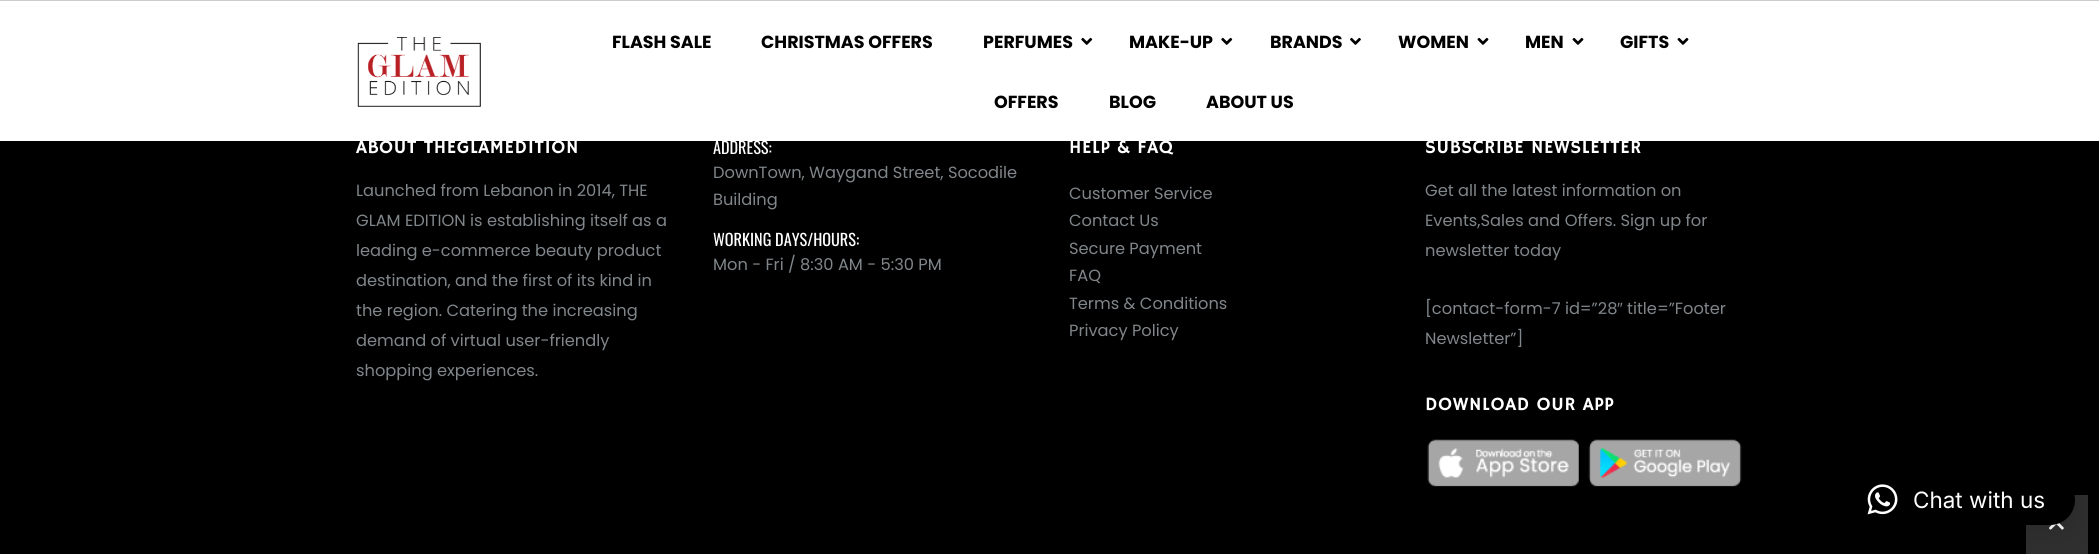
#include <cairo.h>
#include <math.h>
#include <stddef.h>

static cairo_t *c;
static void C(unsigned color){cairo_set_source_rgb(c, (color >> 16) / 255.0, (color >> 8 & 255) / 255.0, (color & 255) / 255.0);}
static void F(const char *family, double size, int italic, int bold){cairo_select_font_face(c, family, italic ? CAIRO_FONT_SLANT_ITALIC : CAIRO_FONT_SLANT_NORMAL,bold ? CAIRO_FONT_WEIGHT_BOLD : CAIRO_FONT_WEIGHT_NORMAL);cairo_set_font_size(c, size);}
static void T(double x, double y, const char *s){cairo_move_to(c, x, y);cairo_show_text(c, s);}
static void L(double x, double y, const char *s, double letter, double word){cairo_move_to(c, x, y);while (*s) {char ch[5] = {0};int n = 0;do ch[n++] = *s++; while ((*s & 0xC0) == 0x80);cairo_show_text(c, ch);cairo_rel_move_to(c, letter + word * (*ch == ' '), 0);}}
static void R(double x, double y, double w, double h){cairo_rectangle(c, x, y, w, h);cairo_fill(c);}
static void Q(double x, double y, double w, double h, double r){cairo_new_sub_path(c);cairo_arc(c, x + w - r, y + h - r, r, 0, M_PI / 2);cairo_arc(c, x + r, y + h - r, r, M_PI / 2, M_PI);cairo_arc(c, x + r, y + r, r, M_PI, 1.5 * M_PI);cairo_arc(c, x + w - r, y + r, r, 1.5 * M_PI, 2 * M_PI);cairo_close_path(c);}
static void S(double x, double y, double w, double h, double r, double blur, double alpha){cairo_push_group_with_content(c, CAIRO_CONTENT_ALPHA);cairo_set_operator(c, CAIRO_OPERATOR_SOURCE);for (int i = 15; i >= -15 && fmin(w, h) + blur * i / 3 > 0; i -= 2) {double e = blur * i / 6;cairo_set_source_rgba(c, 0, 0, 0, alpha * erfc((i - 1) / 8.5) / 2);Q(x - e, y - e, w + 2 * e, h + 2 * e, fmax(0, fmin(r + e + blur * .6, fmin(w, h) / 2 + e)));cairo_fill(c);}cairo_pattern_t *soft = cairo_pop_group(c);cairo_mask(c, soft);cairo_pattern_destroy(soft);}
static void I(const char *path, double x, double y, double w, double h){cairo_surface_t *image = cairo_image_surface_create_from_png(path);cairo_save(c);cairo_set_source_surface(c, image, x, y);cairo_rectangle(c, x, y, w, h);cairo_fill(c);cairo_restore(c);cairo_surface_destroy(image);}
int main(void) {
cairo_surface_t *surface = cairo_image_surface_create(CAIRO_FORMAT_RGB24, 2099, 554);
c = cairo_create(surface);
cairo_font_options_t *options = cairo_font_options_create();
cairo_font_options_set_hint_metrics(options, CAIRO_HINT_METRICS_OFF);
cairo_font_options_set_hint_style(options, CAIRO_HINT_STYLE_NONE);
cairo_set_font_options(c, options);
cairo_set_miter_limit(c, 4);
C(0x000000);
cairo_paint(c);
C(0xffffff);
R(0,1,2099,140);
C(0xcbcbcb);
R(0,0,2099,1);
I("1.png",357,37,124,70);
F("Poppins",17.5,0,1);
C(0x000000);
T(612,48,"FLASH SALE");
T(761,48,"CHRISTMAS OFFERS");
T(983,48,"PERFUMES");
I("2.png",1081,37,12,8);
T(1129,48,"MAKE-UP");
I("2.png",1221,37,12,8);
T(1270,48,"BRANDS");
I("3.png",1350,37,11,8);
T(1398,48,"WOMEN");
I("4.png",1477,37,12,8);
T(1525,48,"MEN");
I("4.png",1572,37,12,8);
T(1620,48,"GIFTS");
I("4.png",1677,37,12,8);
T(994,108,"OFFERS");
T(1109,108,"BLOG");
T(1206,108,"ABOUT US");
F("Hammersmith One",18.75,0,0);
C(0xffffff);
L(356,153,"ABOUT THEGLAMEDITION",.6,0);
F("Poppins",16.25,0,0);
C(0x80868a);
T(356,196,"Launched from Lebanon in 2014, THE");
T(356,226,"GLAM EDITION is establishing itself as a");
T(356,256,"leading e-commerce beauty product");
T(356,286,"destination, and the first of its kind in");
T(356,316,"the region. Catering the increasing");
T(356,346,"demand of virtual user-friendly");
T(356,376,"shopping experiences.");
F("Oswald",16.25,0,0);
C(0xffffff);
T(713,154,"ADDRESS:");
F("Poppins",16.25,0,0);
C(0x80868a);
T(713,178,"DownTown, Waygand Street, Socodile");
T(713,205,"Building");
F("Oswald",16.25,0,0);
C(0xffffff);
T(713,246,"WORKING DAYS/HOURS:");
F("Poppins",16.25,0,0);
C(0x80868a);
T(713,270,"Mon - Fri / 8:30 AM - 5:30 PM");
F("Hammersmith One",18.75,0,0);
C(0xffffff);
L(1069,153,"HELP & FAQ",.6,0);
F("Poppins",16.25,0,0);
C(0x80868a);
T(1069,199,"Customer Service");
T(1069,226,"Contact Us");
T(1069,254,"Secure Payment");
T(1069,281,"FAQ");
T(1069,309,"Terms & Conditions");
T(1069,336,"Privacy Policy");
F("Hammersmith One",18.75,0,0);
C(0xffffff);
L(1425,153,"SUBSCRIBE NEWSLETTER",.6,0);
F("Poppins",16.25,0,0);
C(0x80868a);
T(1425,196,"Get all the latest information on");
T(1425,226,"Events,Sales and Offers. Sign up for");
T(1425,256,"newsletter today");
T(1425,314,"[contact-form-7 id=”28");
F("Liberation Sans",16.25,0,0);
T(1617,314,"″");
F("Poppins",16.25,0,0);
T(1627,314,"title=”Footer");
T(1425,344,"Newsletter”]");
F("Hammersmith One",18.75,0,0);
C(0xffffff);
L(1425,410,"DOWNLOAD OUR APP",.6,0);
I("5.png",1427,439,152,48);
I("6.png",1588,439,154,48);
C(0x303030);
R(2026,495,62,59);
I("8.png",2049,523,15,7);
C(0x000000);
S(1838,478,237,50,25,20,.16);
C(0x000000);
Q(1838,475,237,50,25);
cairo_fill(c);
I("7.png",1867,484,31,31);
F("Inter",22.5,0,0);
C(0xffffff);
T(1913,508,"Chat with us");
cairo_surface_write_to_png(surface, "o.png");
cairo_font_options_destroy(options);
cairo_destroy(c);
cairo_surface_destroy(surface);
return 0;
}
